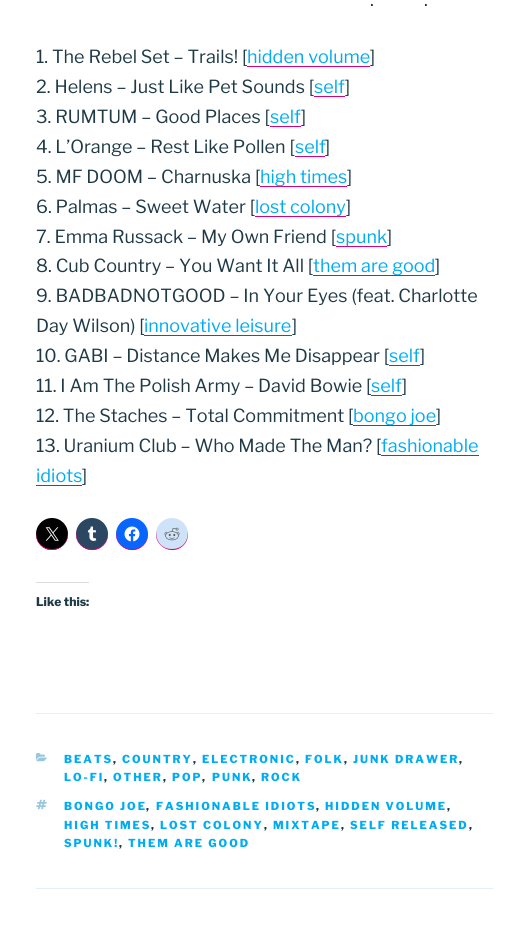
#include <cairo.h>
#include <math.h>
#include <stddef.h>

static cairo_t *c;
static void C(unsigned color){cairo_set_source_rgb(c, (color >> 16) / 255.0, (color >> 8 & 255) / 255.0, (color & 255) / 255.0);}
static void F(const char *family, double size, int italic, int bold){cairo_select_font_face(c, family, italic ? CAIRO_FONT_SLANT_ITALIC : CAIRO_FONT_SLANT_NORMAL,bold ? CAIRO_FONT_WEIGHT_BOLD : CAIRO_FONT_WEIGHT_NORMAL);cairo_set_font_size(c, size);}
static void T(double x, double y, const char *s){cairo_move_to(c, x, y);cairo_show_text(c, s);}
static void L(double x, double y, const char *s, double letter, double word){cairo_move_to(c, x, y);while (*s) {char ch[5] = {0};int n = 0;do ch[n++] = *s++; while ((*s & 0xC0) == 0x80);cairo_show_text(c, ch);cairo_rel_move_to(c, letter + word * (*ch == ' '), 0);}}
static void R(double x, double y, double w, double h){cairo_rectangle(c, x, y, w, h);cairo_fill(c);}
static void I(const char *path, double x, double y, double w, double h){cairo_surface_t *image = cairo_image_surface_create_from_png(path);cairo_save(c);cairo_set_source_surface(c, image, x, y);cairo_rectangle(c, x, y, w, h);cairo_fill(c);cairo_restore(c);cairo_surface_destroy(image);}
int main(void) {
cairo_surface_t *surface = cairo_image_surface_create(CAIRO_FORMAT_RGB24, 529, 935);
c = cairo_create(surface);
cairo_font_options_t *options = cairo_font_options_create();
cairo_font_options_set_hint_metrics(options, CAIRO_HINT_METRICS_OFF);
cairo_font_options_set_hint_style(options, CAIRO_HINT_STYLE_NONE);
cairo_set_font_options(c, options);
cairo_set_miter_limit(c, 4);
C(0xffffff);
cairo_paint(c);
F("Libre Franklin",18,0,0);
C(0x1f3a47);
T(370,6,".");
T(424,6,".");
T(36,63,"1. The Rebel Set – Trails! [");
C(0x00acf1);
T(247,63,"hidden volume");
C(0xd8037c);
R(247,66,123,1);
C(0x1f3a47);
T(370,63,"]");
T(36,93,"2. Helens – Just Like Pet Sounds [");
C(0x00acf1);
T(314,93,"self");
C(0xd8037c);
R(314,96,31,1);
C(0x1f3a47);
T(345,93,"]");
T(36,123,"3. RUMTUM – Good Places [");
C(0x00acf1);
T(270,123,"self");
C(0xd8037c);
R(270,126,31,1);
C(0x1f3a47);
T(301,123,"]");
T(36,153,"4. L’Orange – Rest Like Pollen [");
C(0x00acf1);
T(295,153,"self");
C(0xd8037c);
R(295,156,30,1);
C(0x1f3a47);
T(325,153,"]");
T(36,183,"5. MF DOOM – Charnuska [");
C(0xd8037c);
R(260,186,87,1);
C(0x00acf1);
T(260,183,"high times");
C(0x1f3a47);
T(347,183,"]");
T(36,213,"6. Palmas – Sweet Water [");
C(0x00acf1);
T(255,213,"lost colony");
C(0xd8037c);
R(255,216,91,1);
C(0x1f3a47);
T(346,213,"]");
T(36,243,"7. Emma Russack – My Own Friend [");
C(0x00acf1);
T(336,243,"spunk");
C(0xd8037c);
R(336,246,51,1);
C(0x1f3a47);
T(387,243,"]");
T(36,272,"8. Cub Country – You Want It All [");
C(0xd8037c);
R(313,275,122,1);
C(0x00acf1);
T(313,272,"them are good");
C(0x1f3a47);
T(435,272,"]");
T(36,302,"9. BADBADNOTGOOD – In Your Eyes (feat. Charlotte");
T(36,332,"Day Wilson) [");
C(0x00acf1);
T(144,332,"innovative leisure");
C(0xd8037c);
R(144,335,148,1);
C(0x1f3a47);
T(292,332,"]");
T(36,362,"10. GABI – Distance Makes Me Disappear [");
C(0x00acf1);
T(389,362,"self");
C(0xd8037c);
R(389,365,31,1);
C(0x1f3a47);
T(420,362,"]");
T(36,392,"11. I Am The Polish Army – David Bowie [");
C(0x00acf1);
T(371,392,"self");
C(0xd8037c);
R(371,395,31,1);
C(0x1f3a47);
T(402,392,"]");
T(36,422,"12. The Staches – Total Commitment [");
C(0xd8037c);
R(353,425,83,1);
C(0x00acf1);
T(353,422,"bongo joe");
C(0x1f3a47);
T(436,422,"]");
T(36,452,"13. Uranium Club – Who Made The Man? [");
C(0x00acf1);
T(381,452,"fashionable");
C(0xd8037c);
R(381,455,98,1);
C(0x00acf1);
T(36,482,"idiots");
C(0xd8037c);
R(36,485,46,1);
C(0x1f3a47);
T(82,482,"]");
C(0x000000);
cairo_new_path(c);
cairo_arc(c,52,534,16,0,2 * M_PI);
cairo_fill(c);
C(0xd8037c);
cairo_new_path(c);
cairo_move_to(c,36.5,530);
cairo_curve_to(c,35.5,534.5,36,539,38.5,543);
cairo_curve_to(c,49,558,72,547,67.5,530);
cairo_curve_to(c,69,539,64,549,52,549);
cairo_curve_to(c,40,549,35,539,36.5,530);
cairo_close_path(c);
cairo_fill(c);
I("1.png",45,527,14,14);
C(0x2c4762);
cairo_arc(c,92,534,16,0,2 * M_PI);
cairo_fill(c);
C(0xd8037c);
cairo_new_path(c);
cairo_move_to(c,76.5,530);
cairo_curve_to(c,72,547,95,558,105.5,543);
cairo_curve_to(c,108,539,108.5,534.5,107.5,530);
cairo_curve_to(c,109,539,104,549,92,549);
cairo_curve_to(c,80,549,75,539,76.5,530);
cairo_close_path(c);
cairo_fill(c);
I("2.png",87,526,10,15);
C(0x0866ff);
cairo_arc(c,132,534,16,0,2 * M_PI);
cairo_fill(c);
C(0xd8037c);
cairo_new_path(c);
cairo_move_to(c,116.5,530);
cairo_curve_to(c,112,547,135,558,145.5,543);
cairo_curve_to(c,148,539,148.5,534.5,147.5,530);
cairo_curve_to(c,149,539,144,549,132,549);
cairo_curve_to(c,120,549,115,539,116.5,530);
cairo_close_path(c);
cairo_fill(c);
I("3.png",124,526,16,16);
C(0xcee3f8);
cairo_arc(c,172,534,16,0,2 * M_PI);
cairo_fill(c);
C(0xd8037c);
cairo_new_path(c);
cairo_move_to(c,156.5,530);
cairo_curve_to(c,152,547,175,558,185.5,543);
cairo_curve_to(c,188,539,188.5,534.5,187.5,530);
cairo_curve_to(c,189,539,184,549,172,549);
cairo_curve_to(c,160,549,155,539,156.5,530);
cairo_close_path(c);
cairo_fill(c);
I("4.png",164,527,16,14);
C(0xdcdcde);
R(36,582,53,1);
F("Libre Franklin ExtraBold",12,0,0);
C(0x1f3a47);
T(36,606,"Like this:");
C(0xe4f0f6);
R(36,713,457,1);
R(36,888,457,1);
I("5.png",36,753,11,9);
F("Libre Franklin ExtraBold",11,0,0);
C(0x00acf1);
L(64,763,"BEATS",2,0);
C(0x1f3a47);
L(113,763,",",2,0);
C(0x00acf1);
L(122,763,"COUNTRY",2,0);
C(0x1f3a47);
L(193,763,",",2,0);
C(0x00acf1);
L(202,763,"ELECTRONIC",2,0);
C(0x1f3a47);
L(296,763,",",2,0);
C(0x00acf1);
L(305,763,"FOLK",2,0);
C(0x1f3a47);
L(344,763,",",2,0);
C(0x00acf1);
L(353,763,"JUNK DRAWER",2,0);
C(0x1f3a47);
L(459,763,",",2,0);
C(0x00acf1);
L(64,781,"LO-FI",2,0);
C(0x1f3a47);
L(104,781,",",2,0);
C(0x00acf1);
L(113,781,"OTHER",2,0);
C(0x1f3a47);
L(163,781,",",2,0);
C(0x00acf1);
L(172,781,"POP",2,0);
C(0x1f3a47);
L(202,781,",",2,0);
C(0x00acf1);
L(212,781,"PUNK",2,0);
C(0x1f3a47);
L(252,781,",",2,0);
C(0x00acf1);
L(261,781,"ROCK",2,0);
I("6.png",36,799,11,11);
L(64,810,"BONGO JOE",2,0);
C(0x1f3a47);
L(146,810,",",2,0);
C(0x00acf1);
L(156,810,"FASHIONABLE IDIOTS",2,0);
C(0x1f3a47);
L(316,810,",",2,0);
C(0x00acf1);
L(325,810,"HIDDEN VOLUME",2,0);
C(0x1f3a47);
L(447,810,",",2,0);
C(0x00acf1);
L(64,829,"HIGH TIMES",2,0);
C(0x1f3a47);
L(151,829,",",2,0);
C(0x00acf1);
L(160,829,"LOST COLONY",2,0);
C(0x1f3a47);
L(264,829,",",2,0);
C(0x00acf1);
L(273,829,"MIXTAPE",2,0);
C(0x1f3a47);
L(341,829,",",2,0);
C(0x00acf1);
L(350,829,"SELF RELEASED",2,0);
C(0x1f3a47);
L(469,829,",",2,0);
C(0x00acf1);
L(64,847,"SPUNK!",2,0);
C(0x1f3a47);
L(119,847,",",2,0);
C(0x00acf1);
L(128,847,"THEM ARE GOOD",2,0);
cairo_surface_write_to_png(surface, "o.png");
cairo_font_options_destroy(options);
cairo_destroy(c);
cairo_surface_destroy(surface);
return 0;
}
